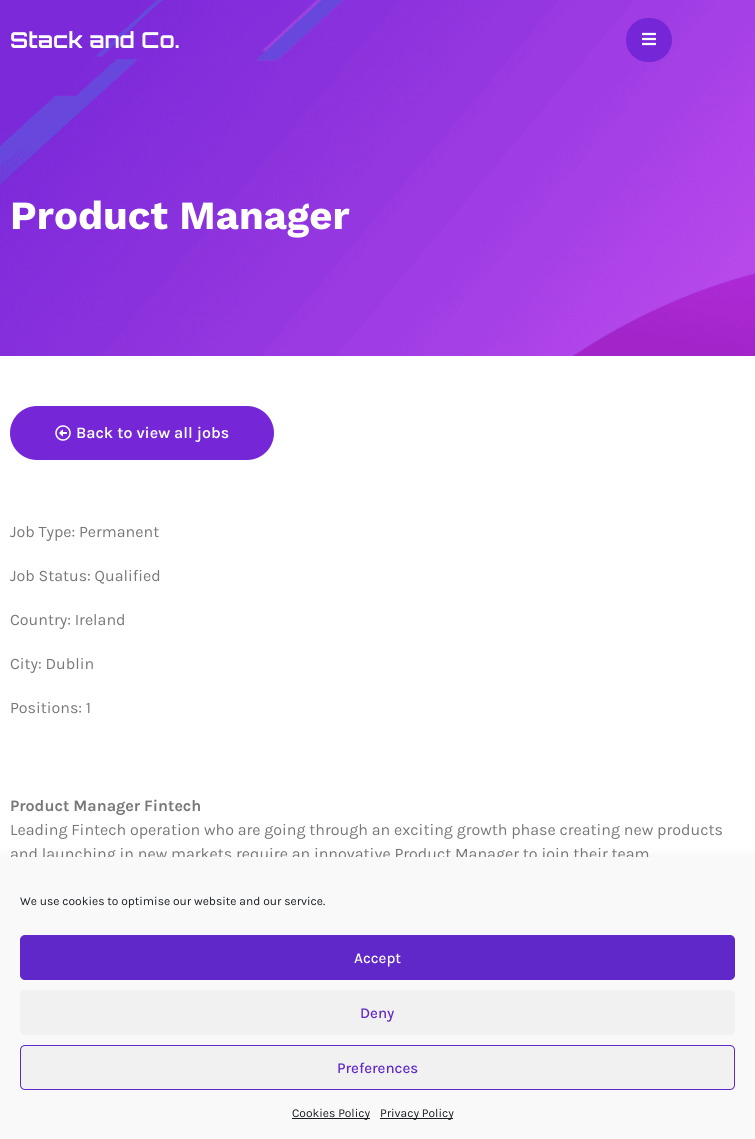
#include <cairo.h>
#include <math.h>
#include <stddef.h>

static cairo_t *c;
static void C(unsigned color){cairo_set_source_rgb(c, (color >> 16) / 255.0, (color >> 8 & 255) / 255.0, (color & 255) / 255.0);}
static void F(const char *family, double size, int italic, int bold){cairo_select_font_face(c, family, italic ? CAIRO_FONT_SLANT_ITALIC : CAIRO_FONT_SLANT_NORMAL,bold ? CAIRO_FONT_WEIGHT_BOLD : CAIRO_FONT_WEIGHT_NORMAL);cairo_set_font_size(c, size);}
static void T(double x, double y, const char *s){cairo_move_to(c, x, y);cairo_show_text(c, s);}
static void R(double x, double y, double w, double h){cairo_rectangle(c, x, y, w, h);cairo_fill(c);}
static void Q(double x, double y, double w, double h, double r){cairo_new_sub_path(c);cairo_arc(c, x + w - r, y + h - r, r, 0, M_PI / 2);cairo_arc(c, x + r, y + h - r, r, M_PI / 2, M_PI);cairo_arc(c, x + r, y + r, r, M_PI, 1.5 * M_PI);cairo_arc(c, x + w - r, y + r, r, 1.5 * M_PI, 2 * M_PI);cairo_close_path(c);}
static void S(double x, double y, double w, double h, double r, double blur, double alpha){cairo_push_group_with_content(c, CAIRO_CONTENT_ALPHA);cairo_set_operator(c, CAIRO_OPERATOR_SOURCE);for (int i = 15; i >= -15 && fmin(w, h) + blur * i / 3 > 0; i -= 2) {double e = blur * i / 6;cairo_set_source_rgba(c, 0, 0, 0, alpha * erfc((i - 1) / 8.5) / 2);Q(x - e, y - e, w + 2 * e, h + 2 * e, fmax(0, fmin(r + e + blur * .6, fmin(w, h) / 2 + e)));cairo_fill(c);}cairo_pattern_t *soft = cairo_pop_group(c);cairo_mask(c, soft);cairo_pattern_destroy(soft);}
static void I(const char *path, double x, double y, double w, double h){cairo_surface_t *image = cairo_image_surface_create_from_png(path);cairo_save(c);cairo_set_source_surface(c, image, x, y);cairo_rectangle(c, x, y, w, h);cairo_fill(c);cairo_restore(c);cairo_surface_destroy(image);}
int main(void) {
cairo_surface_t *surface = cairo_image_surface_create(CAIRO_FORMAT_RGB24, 755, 1139);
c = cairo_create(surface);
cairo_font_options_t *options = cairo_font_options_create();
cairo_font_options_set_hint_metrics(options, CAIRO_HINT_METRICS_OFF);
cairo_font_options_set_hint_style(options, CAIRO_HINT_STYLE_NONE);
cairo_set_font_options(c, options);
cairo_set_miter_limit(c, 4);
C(0xffffff);
cairo_paint(c);
I("2.png",0,0,755,356);
F("Orbitron",22,0,1);
C(0xffffff);
T(10,48,"Stack and Co.");
C(0x7526d7);
Q(626,18,46,44,22);
cairo_fill(c);
I("1.png",642,32,14,14);
F("Work Sans",40,0,1);
C(0xffffff);
T(10,229,"Product Manager");
C(0x7526d7);
Q(10,406,264,54,27);
cairo_fill(c);
I("3.png",55,425,16,16);
F("Karla SemiBold",16,0,0);
C(0xffffff);
T(76,438,"Back to view all jobs");
F("Karla",16,0,0);
C(0x787878);
T(10,537,"Job Type: Permanent");
T(10,581,"Job Status: Qualified");
T(10,625,"Country: Ireland");
T(10,669,"City: Dublin");
T(10,713,"Positions: 1");
F("Karla",16,0,1);
T(10,811,"Product Manager Fintech");
F("Karla",16,0,0);
T(10,835,"Leading Fintech operation who are going through an exciting growth phase creating new products");
T(10,859,"and launching in new markets require an innovative Product Manager to join their team");
C(0x000000);
S(0,867,755,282,0,10,.19);
C(0xf9f9f9);
R(0,857,755,282);
F("Karla",12,0,0);
C(0x191e23);
T(20,905,"We use cookies to optimise our website and our service.");
C(0x6028c9);
Q(20.5,935.5,714,44,4.5);
cairo_fill_preserve(c);
cairo_set_line_width(c,1);
cairo_stroke(c);
F("Karla Medium",15,0,0);
C(0xffffff);
T(354,963,"Accept");
C(0xf1f1f1);
Q(20,990,715,45,5);
cairo_fill(c);
C(0x6028c9);
T(360,1018,"Deny");
C(0xf1f1f1);
Q(20.5,1045.5,714,44,4.5);
cairo_fill_preserve(c);
C(0x6028c9);
cairo_stroke(c);
T(337,1073,"Preferences");
C(0x191e23);
R(292,1118,78,1);
F("Karla",12,0,0);
T(292,1117,"Cookies Policy");
R(380,1118,73,1);
T(380,1117,"Privacy Policy");
cairo_surface_write_to_png(surface, "o.png");
cairo_font_options_destroy(options);
cairo_destroy(c);
cairo_surface_destroy(surface);
return 0;
}
